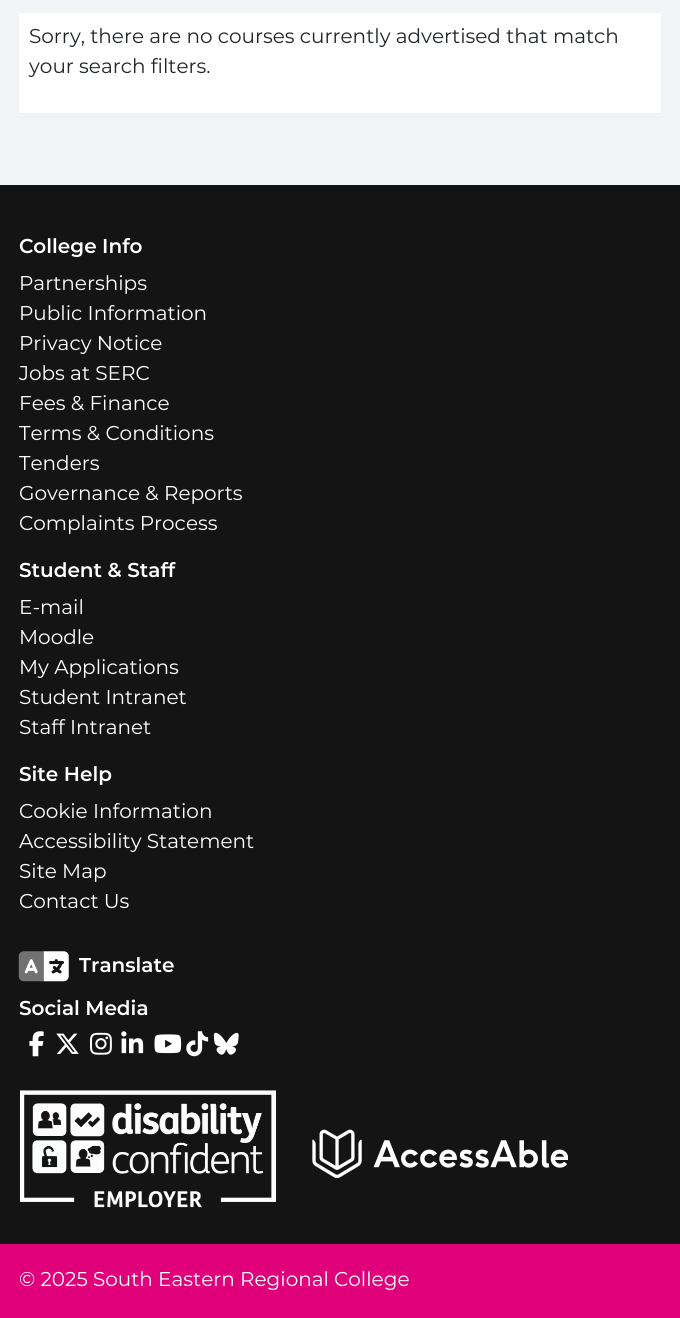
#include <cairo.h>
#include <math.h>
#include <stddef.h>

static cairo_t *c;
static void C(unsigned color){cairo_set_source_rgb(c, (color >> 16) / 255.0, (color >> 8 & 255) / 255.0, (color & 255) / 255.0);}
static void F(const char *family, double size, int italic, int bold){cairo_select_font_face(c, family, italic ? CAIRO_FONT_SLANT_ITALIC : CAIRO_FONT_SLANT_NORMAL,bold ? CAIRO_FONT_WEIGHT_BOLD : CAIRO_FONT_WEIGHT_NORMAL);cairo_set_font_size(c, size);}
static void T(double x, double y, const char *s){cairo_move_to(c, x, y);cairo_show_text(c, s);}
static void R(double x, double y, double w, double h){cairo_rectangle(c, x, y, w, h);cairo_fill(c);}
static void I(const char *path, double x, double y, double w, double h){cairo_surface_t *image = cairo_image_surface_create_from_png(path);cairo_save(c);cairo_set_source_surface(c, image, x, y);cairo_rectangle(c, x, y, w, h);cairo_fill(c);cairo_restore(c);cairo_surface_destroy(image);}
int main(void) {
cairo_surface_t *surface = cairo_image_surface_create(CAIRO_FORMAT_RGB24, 680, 1318);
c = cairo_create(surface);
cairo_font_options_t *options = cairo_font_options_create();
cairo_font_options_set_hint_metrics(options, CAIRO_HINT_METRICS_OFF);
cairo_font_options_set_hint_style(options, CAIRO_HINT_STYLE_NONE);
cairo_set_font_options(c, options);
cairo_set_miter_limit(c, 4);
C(0xf2f3f5);
cairo_paint(c);
C(0xffffff);
R(19,13,642,100);
F("Montserrat",20,0,0);
C(0x212529);
T(29,43,"Sorry, there are no courses currently advertised that match");
T(29,73,"your search filters.");
C(0x141414);
R(0,185,680,1059);
F("Montserrat SemiBold",20,0,0);
C(0xffffff);
T(19,253,"College Info");
F("Montserrat",20,0,0);
T(19,290,"Partnerships");
T(19,320,"Public Information");
T(19,350,"Privacy Notice");
T(19,380,"Jobs at SERC");
T(19,410,"Fees & Finance");
T(19,440,"Terms & Conditions");
T(19,470,"Tenders");
T(19,500,"Governance & Reports");
T(19,530,"Complaints Process");
F("Montserrat SemiBold",20,0,0);
T(19,577,"Student & Staff");
F("Montserrat",20,0,0);
T(19,614,"E-mail");
T(19,644,"Moodle");
T(19,674,"My Applications");
T(19,704,"Student Intranet");
T(19,734,"Staff Intranet");
F("Montserrat SemiBold",20,0,0);
T(19,781,"Site Help");
F("Montserrat",20,0,0);
T(19,818,"Cookie Information");
T(19,848,"Accessibility Statement");
T(19,878,"Site Map");
T(19,908,"Contact Us");
I("1.png",18,951,51,31);
F("Montserrat SemiBold",20,0,0);
T(79,972,"Translate");
T(19,1015,"Social Media");
I("2.png",29,1031,15,26);
I("3.png",56,1033,23,21);
I("4.png",90,1032,22,23);
I("5.png",121,1031,23,23);
I("6.png",154,1034,28,20);
I("7.png",186,1031,23,26);
I("8.png",213,1032,26,23);
I("9.png",20,1090,256,118);
I("10.png",312,1129,256,50);
C(0xe0007a);
R(0,1244,680,74);
F("Montserrat",20,0,0);
C(0xffffff);
T(19,1286,"© 2025 South Eastern Regional College");
cairo_surface_write_to_png(surface, "o.png");
cairo_font_options_destroy(options);
cairo_destroy(c);
cairo_surface_destroy(surface);
return 0;
}
